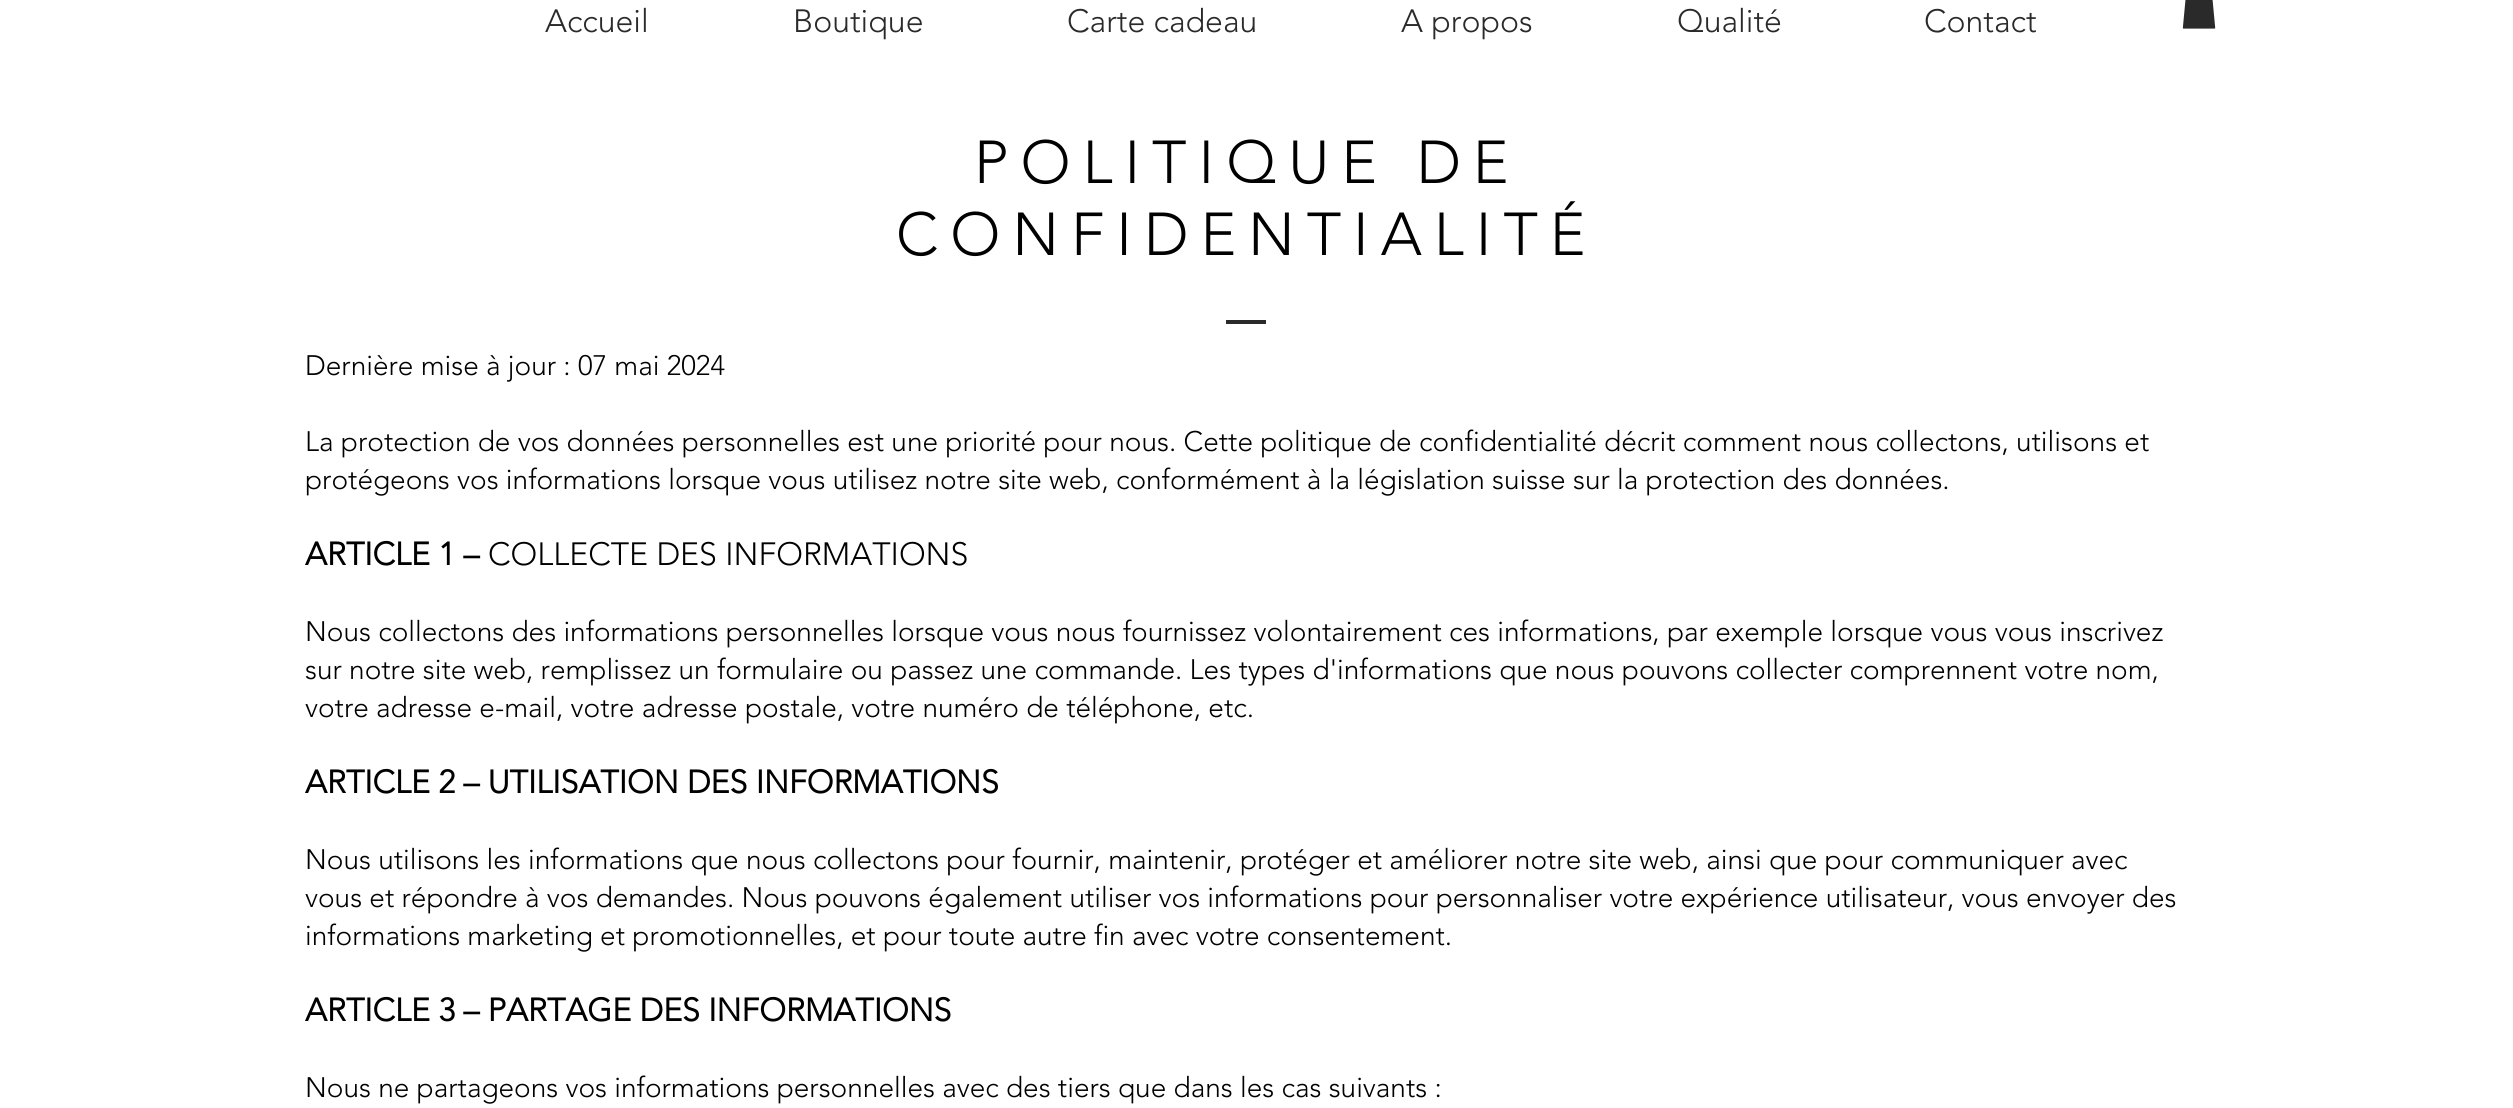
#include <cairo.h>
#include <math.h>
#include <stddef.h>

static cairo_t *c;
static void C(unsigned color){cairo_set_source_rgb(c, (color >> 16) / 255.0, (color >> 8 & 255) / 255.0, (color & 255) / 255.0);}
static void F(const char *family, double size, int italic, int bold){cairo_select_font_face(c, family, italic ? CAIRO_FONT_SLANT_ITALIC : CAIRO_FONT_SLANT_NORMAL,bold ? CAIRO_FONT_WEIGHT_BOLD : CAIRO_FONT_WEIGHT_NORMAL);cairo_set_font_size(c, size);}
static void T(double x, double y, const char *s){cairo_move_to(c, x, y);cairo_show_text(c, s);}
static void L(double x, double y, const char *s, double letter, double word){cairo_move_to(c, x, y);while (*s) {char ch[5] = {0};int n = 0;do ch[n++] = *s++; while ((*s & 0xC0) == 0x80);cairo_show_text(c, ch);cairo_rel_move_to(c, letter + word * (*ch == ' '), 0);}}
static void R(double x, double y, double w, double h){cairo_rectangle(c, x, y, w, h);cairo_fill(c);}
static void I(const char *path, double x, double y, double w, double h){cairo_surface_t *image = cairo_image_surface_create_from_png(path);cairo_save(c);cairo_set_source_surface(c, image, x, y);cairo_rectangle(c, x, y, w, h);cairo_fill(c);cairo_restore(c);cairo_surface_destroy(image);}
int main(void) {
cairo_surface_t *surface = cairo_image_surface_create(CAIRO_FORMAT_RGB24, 2513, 1108);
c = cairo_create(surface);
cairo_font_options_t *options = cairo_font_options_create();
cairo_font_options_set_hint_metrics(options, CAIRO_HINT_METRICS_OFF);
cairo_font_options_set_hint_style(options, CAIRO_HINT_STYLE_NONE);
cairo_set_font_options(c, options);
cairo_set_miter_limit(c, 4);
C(0xffffff);
cairo_paint(c);
F("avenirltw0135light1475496 Light",32,0,0);
C(0x2a2a2a);
T(545,32,"Accueil");
T(793,32,"Boutique");
T(1067,32,"Carte cadeau");
T(1401,32,"A propos");
T(1677,32,"Qualité");
T(1924,32,"Contact");
I("1.png",2182,0,34,29);
F("avenirltw0135light1475496 Light",60,0,0);
C(0x000000);
L(974,183,"POLITIQUE DE",12,0);
L(896,255,"CONFIDENTIALITÉ",12,0);
C(0x2a2a2a);
R(1226,320,40,4);
F("avenirltw0135light1475496 Light",28,0,0);
C(0x000000);
T(305,375,"Dernière mise à jour : 07 mai 2024");
T(305,451,"La protection de vos données personnelles est une priorité pour nous. Cette politique de confidentialité décrit comment nous collectons, utilisons et");
T(305,489,"protégeons vos informations lorsque vous utilisez notre site web, conformément à la législation suisse sur la protection des données.");
F("avenirltw0135light1475496",32,0,1);
T(305,565,"ARTICLE 1 –");
F("avenirltw0135light1475496 Light",32,0,0);
T(488,565,"COLLECTE DES INFORMATIONS");
F("avenirltw0135light1475496 Light",28,0,0);
T(305,641,"Nous collectons des informations personnelles lorsque vous nous fournissez volontairement ces informations, par exemple lorsque vous vous inscrivez");
T(305,679,"sur notre site web, remplissez un formulaire ou passez une commande. Les types d'informations que nous pouvons collecter comprennent votre nom,");
T(305,717,"votre adresse e-mail, votre adresse postale, votre numéro de téléphone, etc.");
F("avenirltw0135light1475496",32,0,1);
T(305,793,"ARTICLE 2 – UTILISATION DES INFORMATIONS");
F("avenirltw0135light1475496 Light",28,0,0);
T(305,869,"Nous utilisons les informations que nous collectons pour fournir, maintenir, protéger et améliorer notre site web, ainsi que pour communiquer avec");
T(305,907,"vous et répondre à vos demandes. Nous pouvons également utiliser vos informations pour personnaliser votre expérience utilisateur, vous envoyer des");
T(305,945,"informations marketing et promotionnelles, et pour toute autre fin avec votre consentement.");
F("avenirltw0135light1475496",32,0,1);
T(305,1021,"ARTICLE 3 – PARTAGE DES INFORMATIONS");
F("avenirltw0135light1475496 Light",28,0,0);
T(305,1097,"Nous ne partageons vos informations personnelles avec des tiers que dans les cas suivants :");
cairo_surface_write_to_png(surface, "o.png");
cairo_font_options_destroy(options);
cairo_destroy(c);
cairo_surface_destroy(surface);
return 0;
}
